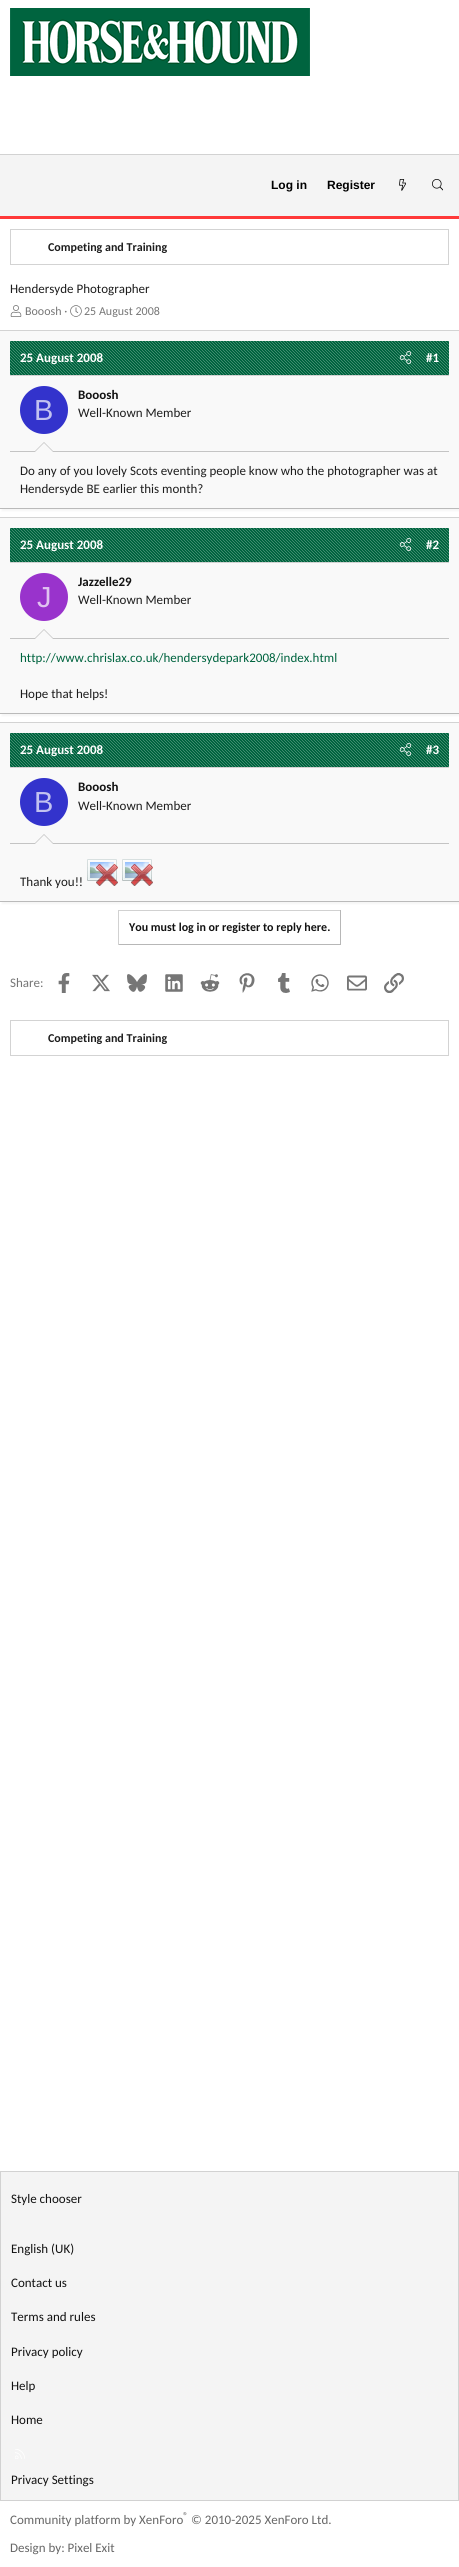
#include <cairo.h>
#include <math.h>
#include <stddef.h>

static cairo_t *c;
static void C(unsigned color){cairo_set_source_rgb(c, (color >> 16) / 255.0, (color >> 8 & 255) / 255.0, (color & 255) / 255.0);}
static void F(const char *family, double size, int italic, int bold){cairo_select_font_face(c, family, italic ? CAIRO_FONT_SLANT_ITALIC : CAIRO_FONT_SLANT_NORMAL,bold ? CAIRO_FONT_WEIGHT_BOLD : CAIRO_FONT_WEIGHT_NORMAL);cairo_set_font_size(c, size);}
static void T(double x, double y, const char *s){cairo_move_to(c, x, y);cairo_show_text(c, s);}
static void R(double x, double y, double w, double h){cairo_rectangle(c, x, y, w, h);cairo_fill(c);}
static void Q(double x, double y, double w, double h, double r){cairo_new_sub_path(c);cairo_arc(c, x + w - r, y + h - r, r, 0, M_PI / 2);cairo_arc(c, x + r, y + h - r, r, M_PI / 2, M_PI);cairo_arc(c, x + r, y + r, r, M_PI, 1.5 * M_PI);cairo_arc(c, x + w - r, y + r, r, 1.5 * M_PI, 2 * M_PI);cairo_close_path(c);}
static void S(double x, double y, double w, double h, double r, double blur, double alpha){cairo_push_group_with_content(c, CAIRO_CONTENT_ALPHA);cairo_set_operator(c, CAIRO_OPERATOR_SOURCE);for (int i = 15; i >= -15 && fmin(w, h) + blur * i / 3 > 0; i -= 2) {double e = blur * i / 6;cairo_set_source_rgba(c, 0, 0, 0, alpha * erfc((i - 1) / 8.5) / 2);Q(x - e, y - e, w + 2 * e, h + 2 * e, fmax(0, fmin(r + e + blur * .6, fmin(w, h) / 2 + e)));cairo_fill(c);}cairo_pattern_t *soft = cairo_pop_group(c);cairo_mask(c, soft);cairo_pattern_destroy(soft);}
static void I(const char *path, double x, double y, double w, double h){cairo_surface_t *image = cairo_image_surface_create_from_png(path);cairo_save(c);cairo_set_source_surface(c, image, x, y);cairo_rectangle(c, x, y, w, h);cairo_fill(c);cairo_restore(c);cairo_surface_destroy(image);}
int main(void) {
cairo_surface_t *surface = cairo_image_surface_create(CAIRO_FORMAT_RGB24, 459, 2567);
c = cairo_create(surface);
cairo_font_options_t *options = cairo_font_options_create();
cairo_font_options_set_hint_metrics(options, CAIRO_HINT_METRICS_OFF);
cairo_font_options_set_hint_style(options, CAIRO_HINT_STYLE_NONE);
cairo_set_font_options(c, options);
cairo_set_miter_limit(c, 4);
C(0xffffff);
cairo_paint(c);
I("1.png",10,8,300,68);
C(0xf4f4f4);
R(0,155,459,61);
C(0xd2d2d2);
R(0,154,459,1);
C(0xff3939);
R(0,216,459,3);
F("Liberation Sans",12,0,1);
C(0x000000);
T(271,189,"Log in");
T(327,189,"Register");
I("2.png",399,179,7,12);
I("3.png",432,179,11,12);
cairo_rectangle(c,10.5,229.5,438,35);
C(0xd3d3d3);
cairo_set_line_width(c,1);
cairo_stroke(c);
F("Carlito",12,0,1);
C(0x1d1d1d);
T(48,251,"Competing and Training");
F("Carlito",13,0,0);
T(10,293,"Hendersyde Photographer");
I("4.png",10,305,12,12);
F("Carlito",12,0,0);
C(0x767676);
T(25,315,"Booosh ·");
I("5.png",70,305,12,12);
T(84,315,"25 August 2008");
C(0x000000);
S(2,332,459,179,0,1,.04);
C(0xf9f9f9);
R(0,331,459,177);
C(0xd3d3d3);
R(0,330,459,1);
C(0xbababa);
R(0,508,459,1);
C(0x00643f);
R(10,341,439,34);
I("6.png",10,341,439,34);
C(0xd3d3d3);
R(10,375,439,1);
F("Carlito",13,0,1);
C(0xffffff);
T(20,362,"25 August 2008");
I("7.png",399,351,13,13);
T(426,362,"#1");
C(0xc4c4c4);
R(10,451,439,1);
C(0x3333cc);
cairo_new_path(c);
cairo_arc(c,44,410,24,0,2 * M_PI);
cairo_fill(c);
F("Liberation Sans",29,0,0);
C(0xc2c2f0);
T(34,420,"B");
F("Carlito",13,0,1);
C(0x121212);
T(78,399,"Booosh");
F("Carlito",13,0,0);
C(0x1d1d1d);
T(78,417,"Well-Known Member");
C(0xc4c4c4);
cairo_new_path(c);
cairo_move_to(c,54,452);
cairo_line_to(c,34,452);
cairo_line_to(c,44,442);
cairo_close_path(c);
cairo_fill(c);
C(0xf9f9f9);
cairo_new_path(c);
cairo_move_to(c,53,452);
cairo_line_to(c,35,452);
cairo_line_to(c,44,443);
cairo_close_path(c);
cairo_fill(c);
C(0x1d1d1d);
T(20,475,"Do any of you lovely Scots eventing people know who the photographer was at");
T(20,493,"Hendersyde BE earlier this month?");
C(0x000000);
S(2,519,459,197,0,1,.04);
C(0xf9f9f9);
R(0,518,459,195);
C(0xd3d3d3);
R(0,517,459,1);
C(0xbababa);
R(0,713,459,1);
C(0x00643f);
R(10,528,439,34);
I("6.png",10,528,439,34);
C(0xd3d3d3);
R(10,562,439,1);
F("Carlito",13,0,1);
C(0xffffff);
T(20,549,"25 August 2008");
I("7.png",399,538,13,13);
T(426,549,"#2");
C(0xc4c4c4);
R(10,638,439,1);
C(0x9933cc);
cairo_new_path(c);
cairo_arc(c,44,597,24,0,2 * M_PI);
cairo_fill(c);
F("Liberation Sans",29,0,0);
C(0xe0c2f0);
T(37,607,"J");
F("Carlito",13,0,1);
C(0x121212);
T(78,586,"Jazzelle29");
F("Carlito",13,0,0);
C(0x1d1d1d);
T(78,604,"Well-Known Member");
C(0xc4c4c4);
cairo_new_path(c);
cairo_move_to(c,54,639);
cairo_line_to(c,34,639);
cairo_line_to(c,44,629);
cairo_close_path(c);
cairo_fill(c);
C(0xf9f9f9);
cairo_new_path(c);
cairo_move_to(c,53,639);
cairo_line_to(c,35,639);
cairo_line_to(c,44,630);
cairo_close_path(c);
cairo_fill(c);
C(0x00643f);
T(20,662,"http://www.chrislax.co.uk/hendersydepark2008/index.html");
C(0x1d1d1d);
T(20,698,"Hope that helps!");
C(0x000000);
S(2,724,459,180,0,1,.04);
C(0xf9f9f9);
R(0,723,459,178);
C(0xd3d3d3);
R(0,722,459,1);
C(0xbababa);
R(0,901,459,1);
C(0x00643f);
R(10,733,439,34);
I("6.png",10,733,439,34);
C(0xd3d3d3);
R(10,767,439,1);
F("Carlito",13,0,1);
C(0xffffff);
T(20,754,"25 August 2008");
I("7.png",399,743,13,13);
T(426,754,"#3");
C(0xc4c4c4);
R(10,843,439,1);
C(0x3333cc);
cairo_new_path(c);
cairo_arc(c,44,802,24,0,2 * M_PI);
cairo_fill(c);
F("Liberation Sans",29,0,0);
C(0xc2c2f0);
T(34,812,"B");
F("Carlito",13,0,1);
C(0x121212);
T(78,791,"Booosh");
F("Carlito",13,0,0);
C(0x1d1d1d);
T(78,810,"Well-Known Member");
C(0xc4c4c4);
cairo_new_path(c);
cairo_move_to(c,54,844);
cairo_line_to(c,34,844);
cairo_line_to(c,44,834);
cairo_close_path(c);
cairo_fill(c);
C(0xf9f9f9);
cairo_new_path(c);
cairo_move_to(c,53,844);
cairo_line_to(c,35,844);
cairo_line_to(c,44,835);
cairo_close_path(c);
cairo_fill(c);
C(0x1d1d1d);
T(20,886,"Thank you!!");
I("8.png",87,859,31,27);
I("8.png",122,859,31,27);
C(0xd1d1d1);
R(118,910,223,1);
C(0xb7b7b7);
R(340,910,1,35);
R(118,944,223,1);
C(0xd1d1d1);
R(118,910,1,35);
F("Carlito",12,0,1);
C(0x121212);
T(129,931,"You must log in or register to reply here.");
F("Carlito",13,0,0);
C(0x767676);
T(10,987,"Share:");
I("9.png",58,973,12,20);
I("10.png",92,974,18,18);
I("11.png",127,974,20,18);
I("12.png",165,974,18,18);
I("13.png",200,974,20,18);
I("14.png",239,973,16,20);
I("15.png",278,973,12,20);
I("16.png",311,974,18,18);
I("17.png",347,975,20,16);
I("18.png",384,973,20,20);
cairo_rectangle(c,10.5,1020.5,438,35);
C(0xd3d3d3);
cairo_stroke(c);
F("Carlito",12,0,1);
C(0x1d1d1d);
T(48,1042,"Competing and Training");
C(0xf4f4f4);
cairo_rectangle(c,.5,2171.5,458,329);
cairo_fill_preserve(c);
C(0xd2d2d2);
cairo_stroke(c);
F("Carlito",13,0,0);
C(0x121212);
T(11,2203,"Style chooser");
T(11,2253,"English (UK)");
T(11,2287,"Contact us");
T(11,2321,"Terms and rules");
T(11,2356,"Privacy policy");
T(11,2390,"Help");
T(11,2424,"Home");
I("19.png",15,2449,10,10);
T(11,2484,"Privacy Settings");
F("Carlito",10,0,0);
C(0x666666);
T(183,2519,"®");
F("Carlito",13,0,0);
T(10,2524,"Community platform by XenForo");
T(191,2524,"© 2010-2025 XenForo Ltd.");
T(10,2552,"Design by: Pixel Exit");
cairo_surface_write_to_png(surface, "o.png");
cairo_font_options_destroy(options);
cairo_destroy(c);
cairo_surface_destroy(surface);
return 0;
}
